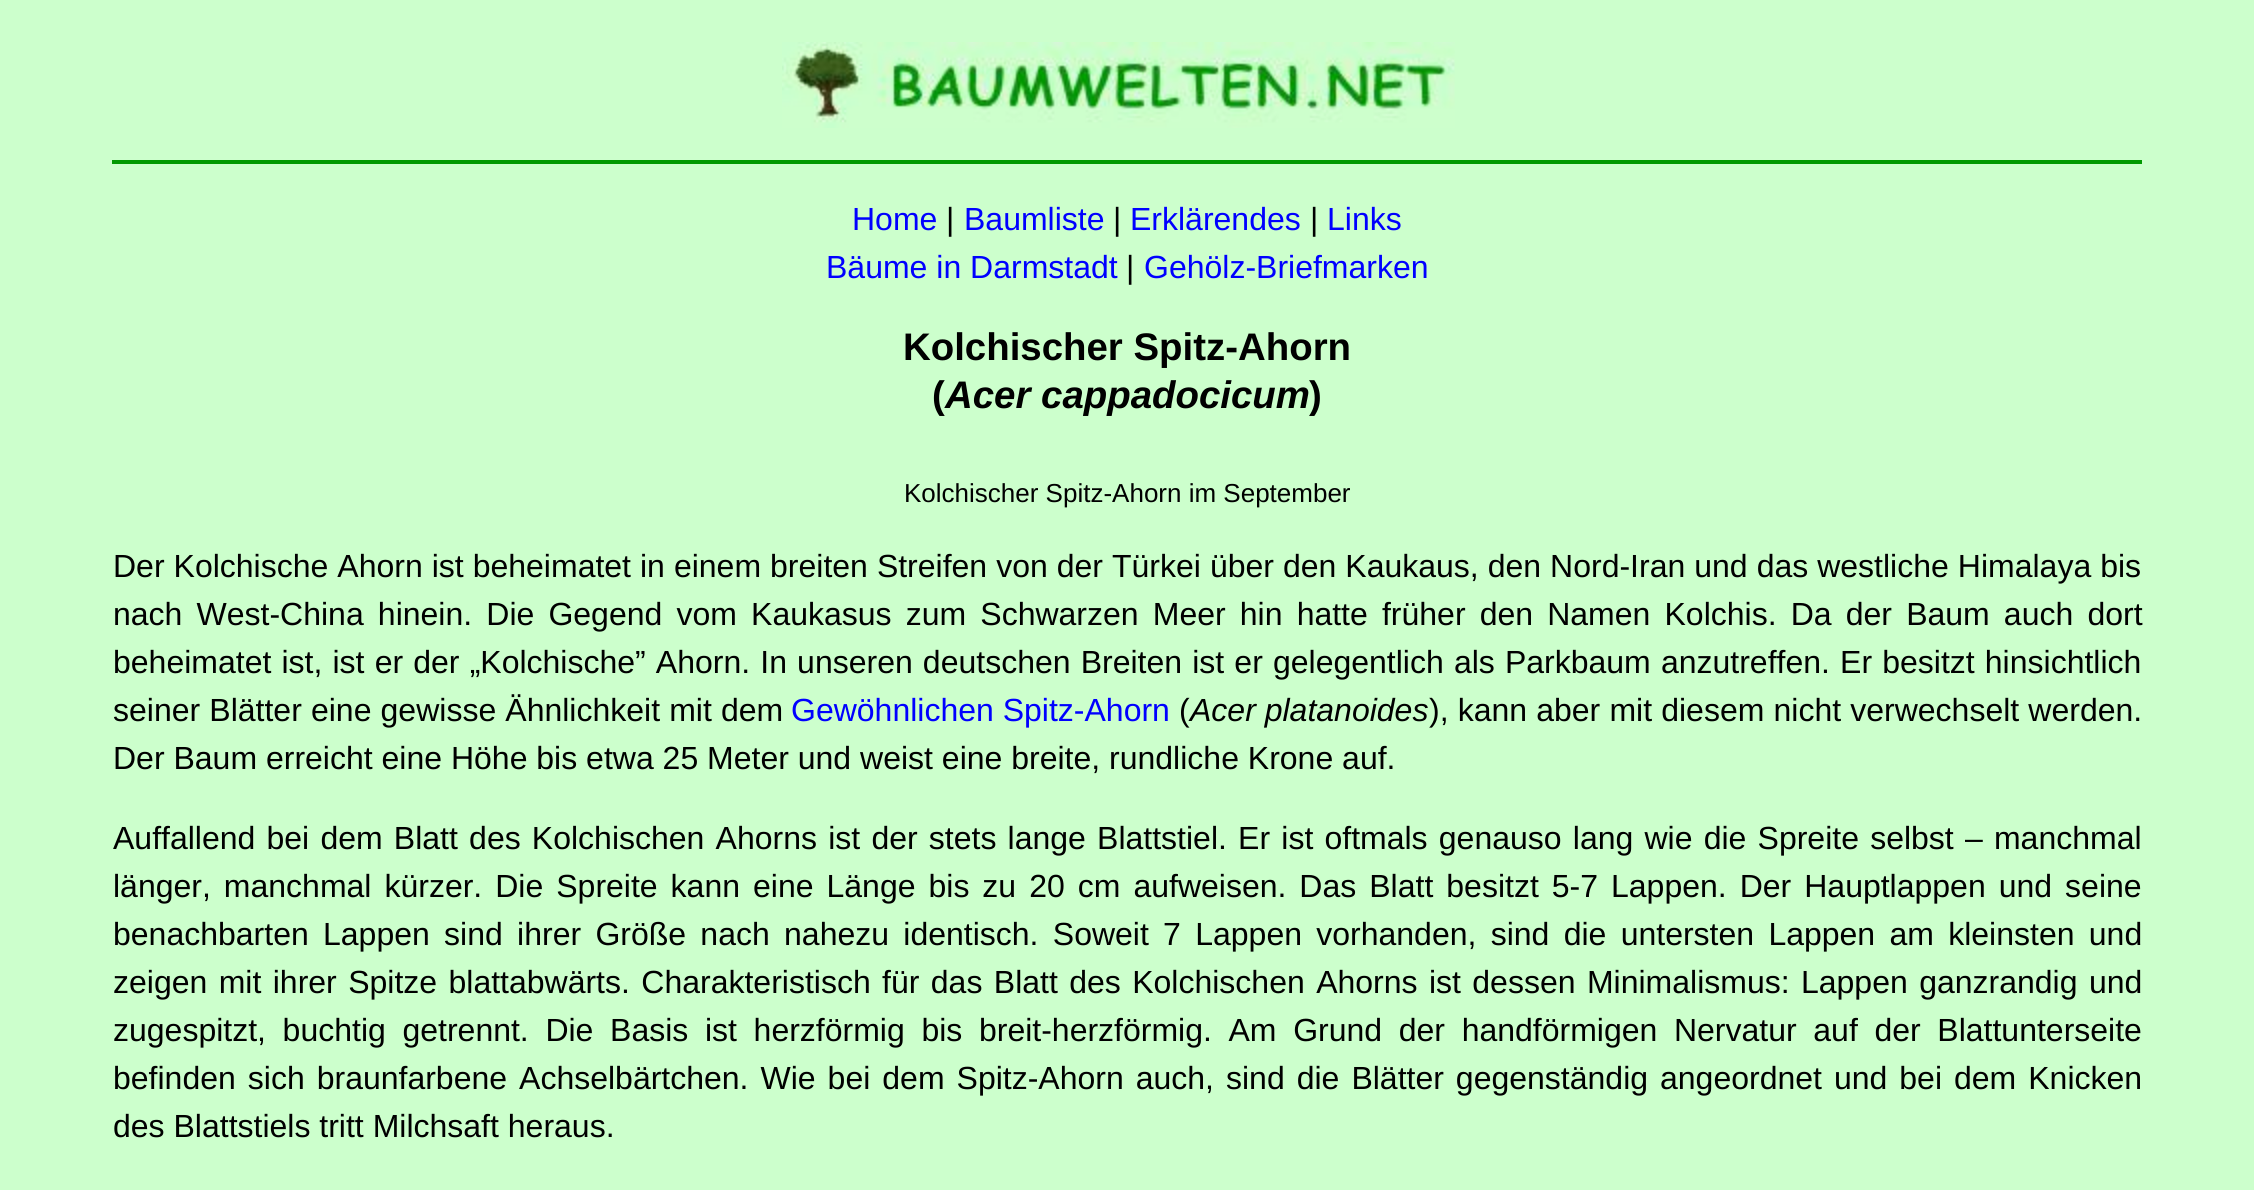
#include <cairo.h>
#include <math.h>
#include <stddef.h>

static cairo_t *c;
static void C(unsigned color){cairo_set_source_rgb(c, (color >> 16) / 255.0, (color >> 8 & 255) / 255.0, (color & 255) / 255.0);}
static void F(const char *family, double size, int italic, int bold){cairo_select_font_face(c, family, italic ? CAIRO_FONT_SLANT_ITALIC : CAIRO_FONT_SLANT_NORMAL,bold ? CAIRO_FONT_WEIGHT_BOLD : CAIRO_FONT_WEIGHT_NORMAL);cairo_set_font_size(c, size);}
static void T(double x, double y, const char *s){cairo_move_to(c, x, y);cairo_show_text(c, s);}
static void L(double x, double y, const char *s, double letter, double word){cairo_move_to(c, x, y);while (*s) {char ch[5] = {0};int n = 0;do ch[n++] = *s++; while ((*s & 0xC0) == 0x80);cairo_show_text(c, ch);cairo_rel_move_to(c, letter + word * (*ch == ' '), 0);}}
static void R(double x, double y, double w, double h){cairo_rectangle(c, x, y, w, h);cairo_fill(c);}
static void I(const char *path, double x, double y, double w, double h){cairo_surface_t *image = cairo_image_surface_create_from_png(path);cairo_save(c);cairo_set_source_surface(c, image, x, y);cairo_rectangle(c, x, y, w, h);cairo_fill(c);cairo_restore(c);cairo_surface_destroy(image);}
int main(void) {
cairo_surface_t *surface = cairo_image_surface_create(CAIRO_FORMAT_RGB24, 2254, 1190);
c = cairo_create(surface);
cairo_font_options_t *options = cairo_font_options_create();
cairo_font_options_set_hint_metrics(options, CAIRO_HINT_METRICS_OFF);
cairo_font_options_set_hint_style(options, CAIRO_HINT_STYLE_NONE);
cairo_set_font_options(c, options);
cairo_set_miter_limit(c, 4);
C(0xccffcc);
cairo_paint(c);
I("1.png",782,42,673,86);
C(0x009900);
R(112,160,2030,4);
F("Liberation Sans",32,0,0);
C(0x0000ff);
T(852,230,"Home");
C(0x000000);
T(946,230,"|");
C(0x0000ff);
T(964,230,"Baumliste");
C(0x000000);
T(1113,230,"|");
C(0x0000ff);
T(1130,230,"Erklärendes");
C(0x000000);
T(1310,230,"|");
C(0x0000ff);
T(1327,230,"Links");
T(826,278,"Bäume in Darmstadt");
C(0x000000);
T(1126,278,"|");
C(0x0000ff);
T(1144,278,"Gehölz-Briefmarken");
F("Liberation Sans",38.4,0,1);
C(0x000000);
T(903,360,"Kolchischer Spitz-Ahorn");
T(932,408,"(");
F("Liberation Sans",38.4,1,1);
T(945,408,"Acer cappadocicum");
F("Liberation Sans",38.4,0,1);
T(1309,408,")");
F("Liberation Sans",26,0,0);
T(904,502,"Kolchischer Spitz-Ahorn im September");
F("Liberation Sans",32,0,0);
L(113,577,"Der Kolchische Ahorn ist beheimatet in einem breiten Streifen von der Türkei über den Kaukaus, den Nord-Iran und das westliche Himalaya bis",0,.1);
L(113,625,"nach West-China hinein. Die Gegend vom Kaukasus zum Schwarzen Meer hin hatte früher den Namen Kolchis. Da der Baum auch dort",0,5.25);
L(113,673,"beheimatet ist, ist er der „Kolchische” Ahorn. In unseren deutschen Breiten ist er gelegentlich als Parkbaum anzutreffen. Er besitzt hinsichtlich",0,1.25);
L(113,721,"seiner Blätter eine gewisse Ähnlichkeit mit dem",0,.25);
C(0x0000ff);
T(791,721,"Gewöhnlichen Spitz-Ahorn");
C(0x000000);
T(1179,721,"(");
F("Liberation Sans",32,1,0);
T(1190,721,"Acer platanoides");
F("Liberation Sans",32,0,0);
L(1429,721,"), kann aber mit diesem nicht verwechselt werden.",0,.25);
T(113,769,"Der Baum erreicht eine Höhe bis etwa 25 Meter und weist eine breite, rundliche Krone auf.");
L(113,849,"Auffallend bei dem Blatt des Kolchischen Ahorns ist der stets lange Blattstiel. Er ist oftmals genauso lang wie die Spreite selbst – manchmal",0,2.3);
L(113,897,"länger, manchmal kürzer. Die Spreite kann eine Länge bis zu 20 cm aufweisen. Das Blatt besitzt 5-7 Lappen. Der Hauptlappen und seine",0,4.1);
L(113,945,"benachbarten Lappen sind ihrer Größe nach nahezu identisch. Soweit 7 Lappen vorhanden, sind die untersten Lappen am kleinsten und",0,5.4);
L(113,993,"zeigen mit ihrer Spitze blattabwärts. Charakteristisch für das Blatt des Kolchischen Ahorns ist dessen Minimalismus: Lappen ganzrandig und",0,2.5);
L(113,1041,"zugespitzt, buchtig getrennt. Die Basis ist herzförmig bis breit-herzförmig. Am Grund der handförmigen Nervatur auf der Blattunterseite",0,7.75);
L(113,1089,"befinden sich braunfarbene Achselbärtchen. Wie bei dem Spitz-Ahorn auch, sind die Blätter gegenständig angeordnet und bei dem Knicken",0,3.1);
T(113,1137,"des Blattstiels tritt Milchsaft heraus.");
cairo_surface_write_to_png(surface, "o.png");
cairo_font_options_destroy(options);
cairo_destroy(c);
cairo_surface_destroy(surface);
return 0;
}
